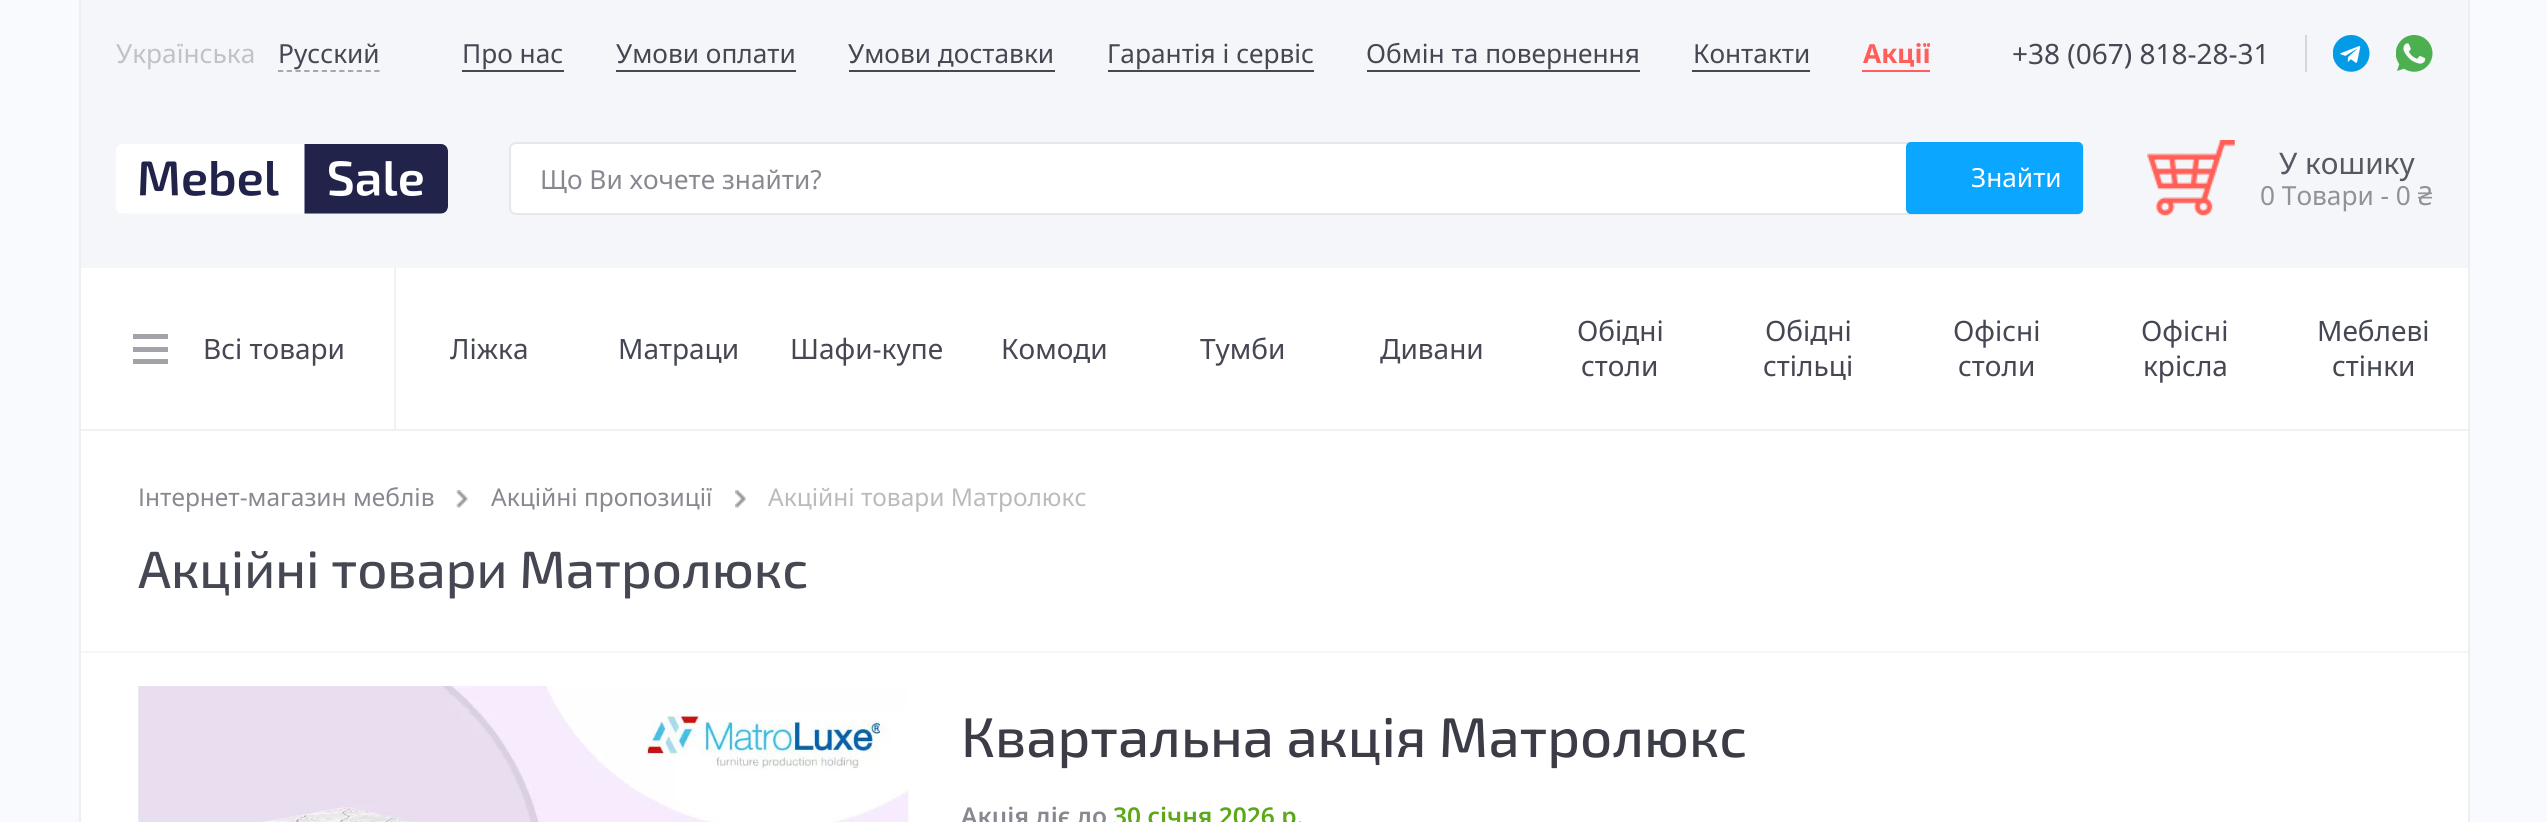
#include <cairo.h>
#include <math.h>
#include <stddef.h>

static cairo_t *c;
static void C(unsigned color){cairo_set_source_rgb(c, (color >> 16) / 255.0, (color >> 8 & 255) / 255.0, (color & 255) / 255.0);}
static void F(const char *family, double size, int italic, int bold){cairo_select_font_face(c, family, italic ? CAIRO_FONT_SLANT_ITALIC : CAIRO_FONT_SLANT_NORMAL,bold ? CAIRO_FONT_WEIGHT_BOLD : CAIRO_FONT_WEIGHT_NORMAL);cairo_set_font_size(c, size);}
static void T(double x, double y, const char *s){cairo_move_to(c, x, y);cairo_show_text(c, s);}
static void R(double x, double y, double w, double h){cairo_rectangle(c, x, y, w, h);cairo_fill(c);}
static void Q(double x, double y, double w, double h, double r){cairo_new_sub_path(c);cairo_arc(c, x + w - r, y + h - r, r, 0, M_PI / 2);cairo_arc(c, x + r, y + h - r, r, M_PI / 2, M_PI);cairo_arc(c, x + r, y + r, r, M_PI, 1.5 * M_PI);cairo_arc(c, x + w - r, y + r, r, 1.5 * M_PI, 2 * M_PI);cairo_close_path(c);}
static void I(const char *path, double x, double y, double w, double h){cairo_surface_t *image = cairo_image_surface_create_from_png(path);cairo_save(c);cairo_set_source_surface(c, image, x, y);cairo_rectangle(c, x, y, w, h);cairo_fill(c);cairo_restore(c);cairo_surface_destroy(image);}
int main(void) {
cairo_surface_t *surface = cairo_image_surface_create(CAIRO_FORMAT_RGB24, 2547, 822);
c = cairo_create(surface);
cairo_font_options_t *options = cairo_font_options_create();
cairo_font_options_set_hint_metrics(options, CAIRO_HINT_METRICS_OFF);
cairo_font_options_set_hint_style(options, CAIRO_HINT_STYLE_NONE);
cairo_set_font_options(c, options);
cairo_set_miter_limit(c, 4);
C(0xf9fafd);
cairo_paint(c);
C(0xffffff);
R(81,268,2387,161);
C(0xeeeef1);
R(2468,0,2,822);
R(79,0,2,822);
C(0xf5f6fa);
R(81,0,2387,268);
F("Noto Sans",26.25,0,0);
C(0xc1c2c6);
T(116,63,"Українська");
C(0x454753);
T(278,63,"Русский");
cairo_new_path(c);
cairo_move_to(c,278,71);
cairo_line_to(c,380,71);
C(0x9d9ea6);
cairo_set_line_width(c,1.8);
cairo_set_dash(c,(double[]){5.25,3.5},2,0);
cairo_stroke(c);
C(0x454753);
T(462,63,"Про нас");
R(462,70,102,2);
T(616,63,"Умови оплати");
R(616,70,180,2);
T(848,63,"Умови доставки");
R(849,70,206,2);
T(1107,63,"Гарантія і сервіс");
R(1108,70,206,2);
T(1366,63,"Обмін та повернення");
R(1367,70,273,2);
T(1693,63,"Контакти");
R(1692,70,118,2);
F("Noto Sans",26.25,0,1);
C(0xff5e5b);
T(1863,63,"Акції");
R(1862,70,68,2);
F("Noto Sans",28,0,0);
C(0x454753);
T(2012,64,"+38 (067) 818-28-31");
C(0xd6d6d9);
R(2305,35,2,37);
I("1.png",2333,35,37,37);
I("2.png",2396,35,37,37);
I("3.png",116,144,332,70);
C(0xffffff);
Q(510,143,1573,71,6);
cairo_fill_preserve(c);
C(0xe7e7e7);
cairo_set_line_width(c,2);
cairo_set_dash(c,NULL,0,0);
cairo_stroke(c);
F("Noto Sans",26.25,0,0);
C(0x888990);
T(540,189,"Що Ви хочете знайти?");
C(0x0ba6ff);
Q(1906,142,177,72,5);
cairo_fill(c);
C(0xffffff);
T(1971,187,"Знайти");
I("4.png",2147,140,88,76);
F("Noto Sans",29.75,0,0);
C(0x565863);
T(2279,174,"У кошику");
F("Noto Sans",26.25,0,0);
C(0x919298);
T(2260,205,"0 Товари - 0 ₴");
C(0xf1f1f3);
R(81,429,2387,2);
R(394,268,2,161);
C(0xa2a3a9);
R(133,334,35,5);
R(133,347,35,5);
R(133,359,35,5);
F("Noto Sans",28,0,0);
C(0x454753);
T(203,359,"Всі товари");
T(450,359,"Ліжка");
T(618,359,"Матраци");
T(790,359,"Шафи-купе");
T(1001,359,"Комоди");
T(1200,359,"Тумби");
T(1380,359,"Дивани");
T(1577,341,"Обідні");
T(1581,376,"столи");
T(1765,341,"Обідні");
T(1763,376,"стільці");
T(1953,341,"Офісні");
T(1958,376,"столи");
T(2141,341,"Офісні");
T(2143,376,"крісла");
T(2317,341,"Меблеві");
T(2332,376,"стінки");
C(0xffffff);
R(81,431,2387,220);
F("Noto Sans",24.5,0,0);
C(0x888990);
T(138,506,"Інтернет-магазин меблів");
I("5.png",456,490,12,18);
T(491,506,"Акційні пропозиції");
I("6.png",735,490,11,18);
C(0xbbbbbd);
T(768,506,"Акційні товари Матролюкс");
F("Exo 2 Medium",52.5,0,0);
C(0x454753);
T(138,588,"Акційні товари Матролюкс");
C(0xffffff);
R(81,653,2387,169);
C(0xf6f6f6);
R(81,651,2387,2);
I("7.png",138,686,771,136);
F("Exo 2 Medium",56,0,0);
C(0x3b3c46);
T(961,757,"Квартальна акція Матролюкс");
F("Noto Sans SemiBold",24.5,0,0);
C(0x888990);
T(961,825,"Акція діє до");
C(0x5da818);
T(1113,825,"30 січня 2026 р.");
cairo_surface_write_to_png(surface, "o.png");
cairo_font_options_destroy(options);
cairo_destroy(c);
cairo_surface_destroy(surface);
return 0;
}
